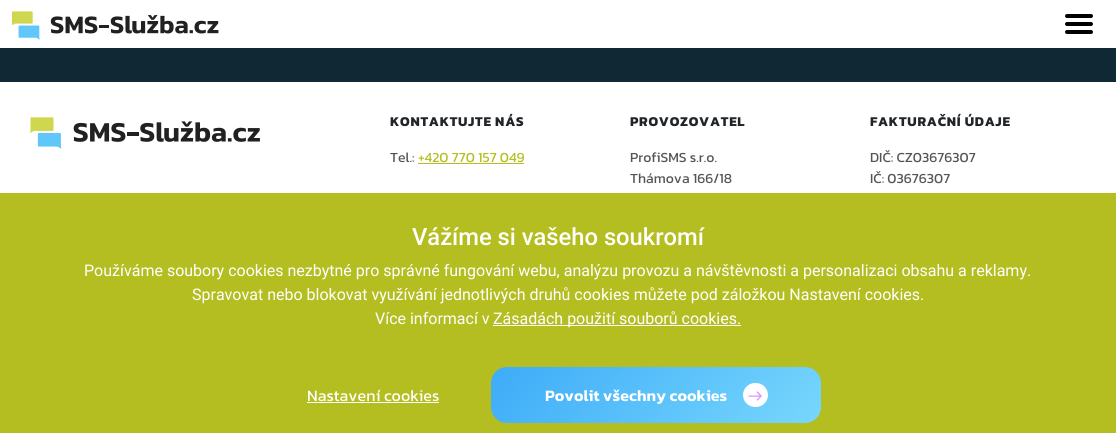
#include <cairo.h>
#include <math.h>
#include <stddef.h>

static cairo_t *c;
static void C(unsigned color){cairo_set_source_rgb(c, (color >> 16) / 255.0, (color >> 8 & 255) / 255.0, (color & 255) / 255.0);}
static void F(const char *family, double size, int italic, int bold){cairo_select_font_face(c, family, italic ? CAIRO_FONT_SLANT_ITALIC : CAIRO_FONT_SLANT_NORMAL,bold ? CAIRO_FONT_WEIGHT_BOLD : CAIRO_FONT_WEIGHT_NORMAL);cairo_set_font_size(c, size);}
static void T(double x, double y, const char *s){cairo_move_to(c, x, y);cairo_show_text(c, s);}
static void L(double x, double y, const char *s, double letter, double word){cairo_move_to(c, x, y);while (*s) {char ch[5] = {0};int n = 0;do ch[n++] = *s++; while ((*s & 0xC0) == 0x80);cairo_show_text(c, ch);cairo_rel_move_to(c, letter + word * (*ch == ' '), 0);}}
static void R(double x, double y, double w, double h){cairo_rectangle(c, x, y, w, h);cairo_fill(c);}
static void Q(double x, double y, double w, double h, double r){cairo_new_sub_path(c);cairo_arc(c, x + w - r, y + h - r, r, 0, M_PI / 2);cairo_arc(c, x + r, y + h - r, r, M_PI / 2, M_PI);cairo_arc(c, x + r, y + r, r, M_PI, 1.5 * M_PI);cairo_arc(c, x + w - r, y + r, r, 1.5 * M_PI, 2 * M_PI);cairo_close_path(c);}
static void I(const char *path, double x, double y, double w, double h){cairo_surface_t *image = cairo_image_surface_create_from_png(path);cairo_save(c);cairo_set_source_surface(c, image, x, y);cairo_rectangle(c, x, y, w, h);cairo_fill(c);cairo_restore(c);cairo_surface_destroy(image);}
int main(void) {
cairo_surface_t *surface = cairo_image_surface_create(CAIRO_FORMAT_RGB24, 1116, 433);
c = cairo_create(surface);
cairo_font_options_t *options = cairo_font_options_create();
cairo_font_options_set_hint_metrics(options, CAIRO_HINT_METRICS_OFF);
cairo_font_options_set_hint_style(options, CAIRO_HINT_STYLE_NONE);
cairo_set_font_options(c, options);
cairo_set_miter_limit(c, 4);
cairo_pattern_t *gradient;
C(0xffffff);
cairo_paint(c);
I("1.png",12,11,207,29);
C(0x000000);
Q(1065,22,28,4,2);
cairo_fill(c);
Q(1065,14,28,4,2);
cairo_fill(c);
Q(1065,30,28,4,2);
cairo_fill(c);
C(0x102834);
R(0,48,1116,34);
I("2.png",30,117,230,32);
F("Kanit",13.6,0,1);
C(0x212529);
L(390,126,"KONTAKTUJTE NÁS",.75,0);
F("Kanit",14,0,0);
C(0x555555);
T(390,162,"Tel.:");
C(0xb4be21);
T(418,162,"+420 770 157 049");
R(418,163,106,1);
F("Kanit",13.6,0,1);
C(0x212529);
L(630,126,"PROVOZOVATEL",.75,0);
F("Kanit",14,0,0);
C(0x555555);
T(630,162,"ProfiSMS s.r.o.");
T(630,183,"Thámova 166/18");
F("Kanit",13.6,0,1);
C(0x212529);
L(870,126,"FAKTURAČNÍ ÚDAJE",.75,0);
F("Kanit",14,0,0);
C(0x555555);
T(870,162,"DIČ: CZ03676307");
T(870,183,"IČ: 03676307");
C(0xb4be21);
R(0,193,1116,240);
F("Roboto Medium",23.75,0,0);
C(0xffffff);
T(412,245,"Vážíme si vašeho soukromí");
F("Roboto",16,0,0);
T(84,276,"Používáme soubory cookies nezbytné pro správné fungování webu, analýzu provozu a návštěvnosti a personalizaci obsahu a reklamy.");
T(192,300,"Spravovat nebo blokovat využívání jednotlivých druhů cookies můžete pod záložkou Nastavení cookies.");
T(375,324,"Více informací v");
R(493,325,248,1);
T(493,324,"Zásadách použití souborů cookies.");
F("Kanit",16,0,0);
T(307,401,"Nastavení cookies");
R(307,402,132,1);
gradient = cairo_pattern_create_linear(556,299,756,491);
cairo_pattern_add_color_stop_rgba(gradient,.02,0.243,0.675,0.973,1);
cairo_pattern_add_color_stop_rgba(gradient,.96,0.459,0.835,0.988,1);
cairo_set_source(c,gradient);
cairo_pattern_destroy(gradient);
Q(491,367,330,56,16);
cairo_fill(c);
F("Kanit SemiBold",16,0,0);
C(0xffffff);
T(545,401,"Povolit všechny cookies");
Q(743,383,25,24,12);
cairo_fill(c);
I("3.png",748,391,14,10);
cairo_surface_write_to_png(surface, "o.png");
cairo_font_options_destroy(options);
cairo_destroy(c);
cairo_surface_destroy(surface);
return 0;
}
